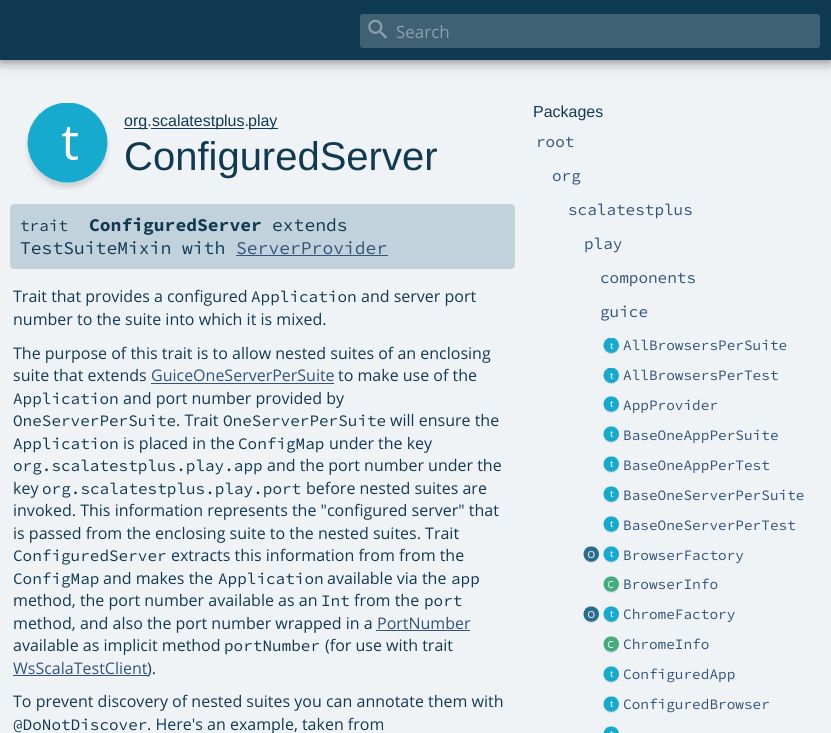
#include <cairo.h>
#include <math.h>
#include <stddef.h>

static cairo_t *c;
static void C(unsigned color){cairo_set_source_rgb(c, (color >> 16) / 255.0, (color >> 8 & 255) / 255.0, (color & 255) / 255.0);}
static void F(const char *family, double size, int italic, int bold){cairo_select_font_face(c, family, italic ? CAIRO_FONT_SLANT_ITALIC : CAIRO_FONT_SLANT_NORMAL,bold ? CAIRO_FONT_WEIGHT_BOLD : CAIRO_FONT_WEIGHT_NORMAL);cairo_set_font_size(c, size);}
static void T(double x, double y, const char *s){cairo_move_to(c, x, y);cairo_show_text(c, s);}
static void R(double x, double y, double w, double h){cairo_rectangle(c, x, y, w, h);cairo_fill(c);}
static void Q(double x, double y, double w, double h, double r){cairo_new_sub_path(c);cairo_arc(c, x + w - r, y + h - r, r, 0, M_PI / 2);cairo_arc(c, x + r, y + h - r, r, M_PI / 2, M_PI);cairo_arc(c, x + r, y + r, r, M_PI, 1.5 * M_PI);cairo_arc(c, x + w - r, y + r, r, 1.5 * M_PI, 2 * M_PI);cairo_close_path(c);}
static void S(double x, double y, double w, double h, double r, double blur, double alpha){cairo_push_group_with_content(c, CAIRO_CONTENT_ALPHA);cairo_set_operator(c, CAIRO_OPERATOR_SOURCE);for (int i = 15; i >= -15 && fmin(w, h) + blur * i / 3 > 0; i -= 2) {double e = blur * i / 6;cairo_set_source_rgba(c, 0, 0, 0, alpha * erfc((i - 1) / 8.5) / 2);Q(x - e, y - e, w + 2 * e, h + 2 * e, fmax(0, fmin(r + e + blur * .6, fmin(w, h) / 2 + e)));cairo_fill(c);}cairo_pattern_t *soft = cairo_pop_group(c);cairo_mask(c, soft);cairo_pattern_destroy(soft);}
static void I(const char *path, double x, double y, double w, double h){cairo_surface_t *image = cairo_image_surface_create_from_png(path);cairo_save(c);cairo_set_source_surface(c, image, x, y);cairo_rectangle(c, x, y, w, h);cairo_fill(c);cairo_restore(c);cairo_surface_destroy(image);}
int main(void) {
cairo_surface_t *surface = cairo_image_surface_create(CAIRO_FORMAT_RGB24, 831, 733);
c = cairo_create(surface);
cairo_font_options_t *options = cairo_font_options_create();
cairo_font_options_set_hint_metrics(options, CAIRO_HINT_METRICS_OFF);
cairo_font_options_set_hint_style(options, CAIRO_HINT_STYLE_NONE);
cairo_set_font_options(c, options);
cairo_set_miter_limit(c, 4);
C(0xf0f3f6);
cairo_paint(c);
C(0x000000);
S(0,5,831,60,0,5,.28);
S(0,0,831,60,0,2.5,.18);
C(0x103a51);
R(0,0,831,60);
C(0x406174);
Q(360,14,460,34,3);
cairo_fill(c);
I("1.png",368,19,19,20);
F("Open Sans",17,0,0);
C(0x8ca0ac);
T(396,38,"Search");
I("2.png",25,103,85,87);
C(0x103a51);
R(124,128,24,1);
F("Liberation Sans",16,0,0);
T(124,126,"org.");
R(151,128,93,1);
T(152,126,"scalatestplus.");
R(249,128,29,1);
T(248,126,"play");
F("Liberation Sans",40,0,0);
T(124,170,"ConfiguredServer");
C(0xc2d2dc);
Q(10,204,505,65,4);
cairo_fill(c);
F("Source Code Pro",18,0,1);
C(0x103a51);
T(89,231,"ConfiguredServer");
F("Source Code Pro",18,0,0);
T(272,231,"extends");
T(20,254,"TestSuiteMixin with");
C(0x315479);
T(236,254,"ServerProvider");
R(236,255,152,1);
F("Source Code Pro",16,0,0);
C(0x103a51);
T(20,231,"trait");
F("Open Sans",16,0,0);
T(13,302,"Trait that provides a configured");
F("Source Code Pro",16,0,0);
T(251,302,"Application");
F("Open Sans",16,0,0);
T(361,302,"and server port");
T(13,325,"number to the suite into which it is mixed.");
T(13,359,"The purpose of this trait is to allow nested suites of an enclosing");
T(13,381,"suite that extends");
C(0x315479);
T(151,381,"GuiceOneServerPerSuite");
R(151,383,183,1);
C(0x103a51);
T(338,381,"to make use of the");
F("Source Code Pro",16,0,0);
T(13,404,"Application");
F("Open Sans",16,0,0);
T(123,404,"and port number provided by");
F("Source Code Pro",16,0,0);
T(13,426,"OneServerPerSuite");
F("Open Sans",16,0,0);
T(176,426,". Trait");
F("Source Code Pro",16,0,0);
T(223,426,"OneServerPerSuite");
F("Open Sans",16,0,0);
T(390,426,"will ensure the");
F("Source Code Pro",16,0,0);
T(13,449,"Application");
F("Open Sans",16,0,0);
T(123,449,"is placed in the");
F("Source Code Pro",16,0,0);
T(238,449,"ConfigMap");
F("Open Sans",16,0,0);
T(329,449,"under the key");
F("Source Code Pro",16,0,0);
T(13,471,"org.scalatestplus.play.app");
F("Open Sans",16,0,0);
T(267,471,"and the port number under the");
T(13,494,"key");
F("Source Code Pro",16,0,0);
T(42,494,"org.scalatestplus.play.port");
F("Open Sans",16,0,0);
T(306,494,"before nested suites are");
T(13,516,"invoked. This information represents the \"configured server\" that");
T(13,539,"is passed from the enclosing suite to the nested suites. Trait");
F("Source Code Pro",16,0,0);
T(13,561,"ConfiguredServer");
F("Open Sans",16,0,0);
T(171,561,"extracts this information from from the");
F("Source Code Pro",16,0,0);
T(13,584,"ConfigMap");
F("Open Sans",16,0,0);
T(103,584,"and makes the");
F("Source Code Pro",16,0,0);
T(218,584,"Application");
F("Open Sans",16,0,0);
T(327,584,"available via the");
F("Source Code Pro",16,0,0);
T(451,584,"app");
F("Open Sans",16,0,0);
T(13,606,"method, the port number available as an");
F("Source Code Pro",16,0,0);
T(321,606,"Int");
F("Open Sans",16,0,0);
T(354,606,"from the");
F("Source Code Pro",16,0,0);
T(424,606,"port");
F("Open Sans",16,0,0);
T(13,629,"method, and also the port number wrapped in a");
C(0x315479);
T(377,629,"PortNumber");
R(376,630,94,1);
C(0x103a51);
T(13,651,"available as implicit method");
F("Source Code Pro",16,0,0);
T(224,651,"portNumber");
F("Open Sans",16,0,0);
T(325,651,"(for use with trait");
C(0x315479);
T(13,674,"WsScalaTestClient");
R(13,675,135,1);
C(0x103a51);
T(147,674,").");
T(13,707,"To prevent discovery of nested suites you can annotate them with");
F("Source Code Pro",16,0,0);
T(13,730,"@DoNotDiscover");
F("Open Sans",16,0,0);
T(147,730,". Here's an example, taken from");
F("Liberation Sans",16,0,0);
T(533,117,"Packages");
F("Source Code Pro",16,0,0);
C(0x315479);
T(536,147,"root");
T(552,181,"org");
T(568,215,"scalatestplus");
T(584,249,"play");
T(600,283,"components");
T(600,317,"guice");
I("3.png",603,338,17,16);
F("Source Code Pro",14.4,0,0);
T(623,350,"AllBrowsersPerSuite");
I("3.png",603,368,17,16);
T(623,380,"AllBrowsersPerTest");
I("4.png",603,396,16,17);
T(623,410,"AppProvider");
I("4.png",603,426,16,17);
T(623,440,"BaseOneAppPerSuite");
I("4.png",603,456,16,17);
T(623,470,"BaseOneAppPerTest");
I("4.png",603,486,16,17);
T(623,500,"BaseOneServerPerSuite");
I("4.png",603,516,16,17);
T(623,530,"BaseOneServerPerTest");
I("5.png",583,546,16,17);
I("4.png",603,546,16,17);
T(623,560,"BrowserFactory");
I("6.png",603,576,16,17);
T(623,589,"BrowserInfo");
I("5.png",583,606,16,17);
I("4.png",603,606,16,17);
T(623,619,"ChromeFactory");
I("6.png",603,636,16,17);
T(623,649,"ChromeInfo");
I("4.png",603,666,16,17);
T(623,679,"ConfiguredApp");
I("4.png",603,696,16,17);
T(623,709,"ConfiguredBrowser");
I("7.png",603,726,16,7);
cairo_surface_write_to_png(surface, "o.png");
cairo_font_options_destroy(options);
cairo_destroy(c);
cairo_surface_destroy(surface);
return 0;
}
